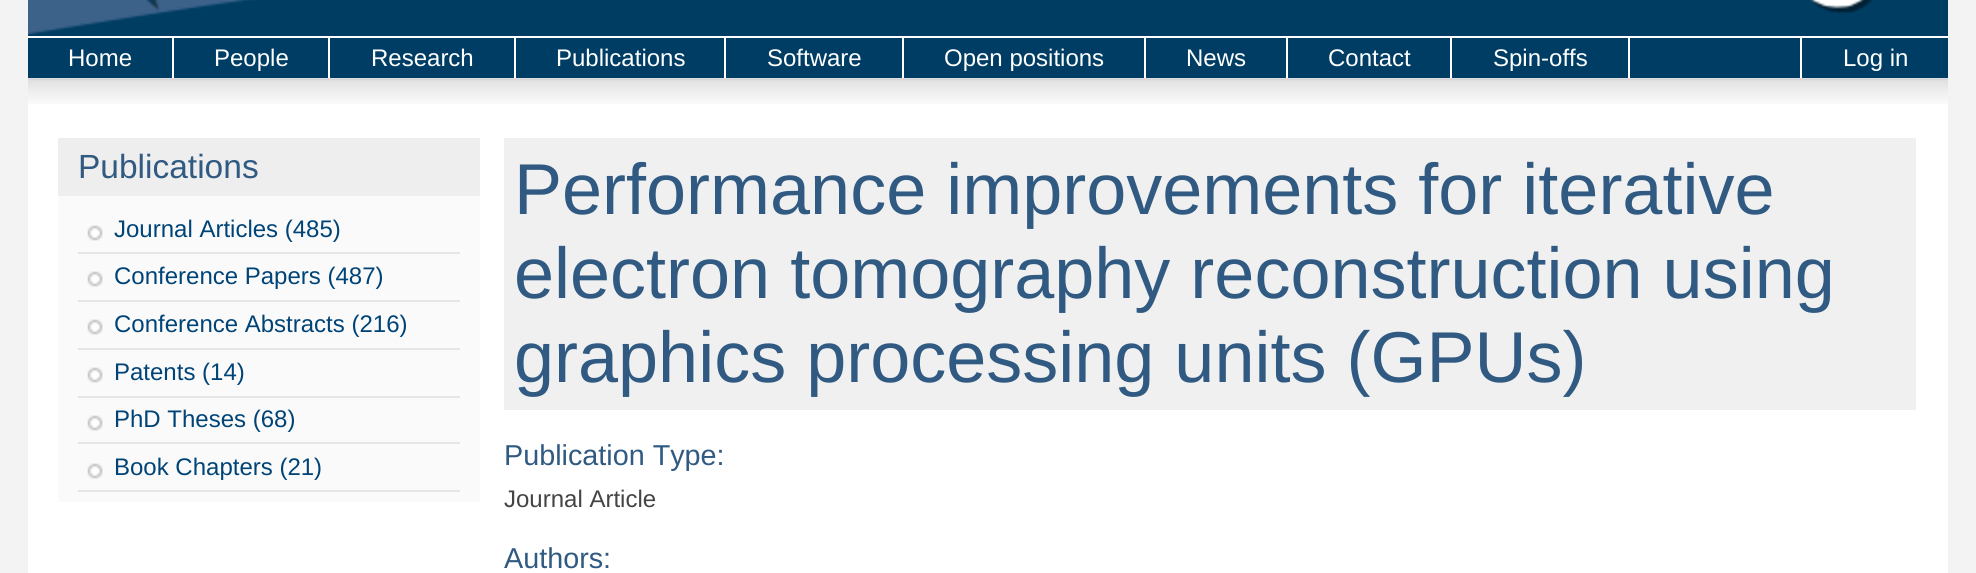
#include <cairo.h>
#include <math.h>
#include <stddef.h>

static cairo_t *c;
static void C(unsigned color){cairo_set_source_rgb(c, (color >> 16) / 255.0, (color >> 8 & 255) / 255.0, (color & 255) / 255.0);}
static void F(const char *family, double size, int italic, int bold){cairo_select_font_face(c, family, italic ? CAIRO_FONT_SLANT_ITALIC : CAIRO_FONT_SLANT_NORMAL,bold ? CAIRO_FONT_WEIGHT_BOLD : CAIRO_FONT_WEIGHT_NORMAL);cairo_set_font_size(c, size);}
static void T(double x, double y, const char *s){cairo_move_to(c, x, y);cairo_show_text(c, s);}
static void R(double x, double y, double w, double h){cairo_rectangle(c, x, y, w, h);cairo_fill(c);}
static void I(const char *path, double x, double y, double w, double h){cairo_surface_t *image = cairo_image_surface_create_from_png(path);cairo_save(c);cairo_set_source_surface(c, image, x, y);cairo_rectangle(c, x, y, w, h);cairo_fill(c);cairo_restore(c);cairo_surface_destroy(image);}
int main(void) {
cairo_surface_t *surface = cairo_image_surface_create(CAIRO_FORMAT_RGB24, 1976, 573);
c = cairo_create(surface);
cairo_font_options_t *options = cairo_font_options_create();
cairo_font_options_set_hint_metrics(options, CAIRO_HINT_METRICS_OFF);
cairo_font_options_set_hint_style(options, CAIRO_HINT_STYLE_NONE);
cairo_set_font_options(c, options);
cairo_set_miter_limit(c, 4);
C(0xf3f3f3);
cairo_paint(c);
C(0xffffff);
R(28,36,1920,537);
I("1.png",28,0,1920,36);
C(0x003d64);
R(28,38,1920,40);
C(0xffffff);
R(172,38,2,40);
F("Liberation Sans",24,0,0);
T(68,66,"Home");
R(328,38,2,40);
T(214,66,"People");
R(514,38,2,40);
T(371,66,"Research");
R(724,38,2,40);
T(556,66,"Publications");
R(902,38,2,40);
T(767,66,"Software");
R(1144,38,2,40);
T(944,66,"Open positions");
R(1286,38,2,40);
T(1186,66,"News");
R(1450,38,2,40);
T(1328,66,"Contact");
R(1628,38,2,40);
T(1493,66,"Spin-offs");
R(1800,38,2,40);
T(1843,66,"Log in");
I("2.png",28,78,1920,26);
C(0xfafafa);
R(58,196,422,306);
C(0xeeeeee);
R(58,138,422,58);
F("Liberation Sans",33.5,0,0);
C(0x305a82);
T(78,178,"Publications");
I("3.png",87,225,16,16);
C(0xe6e6e6);
R(78,252,382,2);
F("Liberation Sans",24,0,0);
C(0x004477);
T(114,237,"Journal Articles (485)");
I("3.png",87,271,16,16);
C(0xe6e6e6);
R(78,300,382,2);
C(0x004477);
T(114,284,"Conference Papers (487)");
I("3.png",87,319,16,16);
C(0xe6e6e6);
R(78,348,382,2);
C(0x004477);
T(114,332,"Conference Abstracts (216)");
I("3.png",87,367,16,16);
C(0xe6e6e6);
R(78,396,382,2);
C(0x004477);
T(114,380,"Patents (14)");
I("3.png",87,415,16,16);
C(0xe6e6e6);
R(78,442,382,2);
C(0x004477);
T(114,427,"PhD Theses (68)");
I("3.png",87,463,16,16);
C(0xe6e6e6);
R(78,490,382,2);
C(0x004477);
T(114,475,"Book Chapters (21)");
C(0xf0f0f0);
R(504,138,1412,272);
F("Liberation Sans",72,0,0);
C(0x305a82);
T(514,214,"Performance improvements for iterative");
T(514,298,"electron tomography reconstruction using");
T(514,382,"graphics processing units (GPUs)");
F("Liberation Sans",28.75,0,0);
T(504,465,"Publication Type:");
F("Liberation Sans",24,0,0);
C(0x444444);
T(504,507,"Journal Article");
F("Liberation Sans",28.75,0,0);
C(0x305a82);
T(504,568,"Authors:");
cairo_surface_write_to_png(surface, "o.png");
cairo_font_options_destroy(options);
cairo_destroy(c);
cairo_surface_destroy(surface);
return 0;
}
